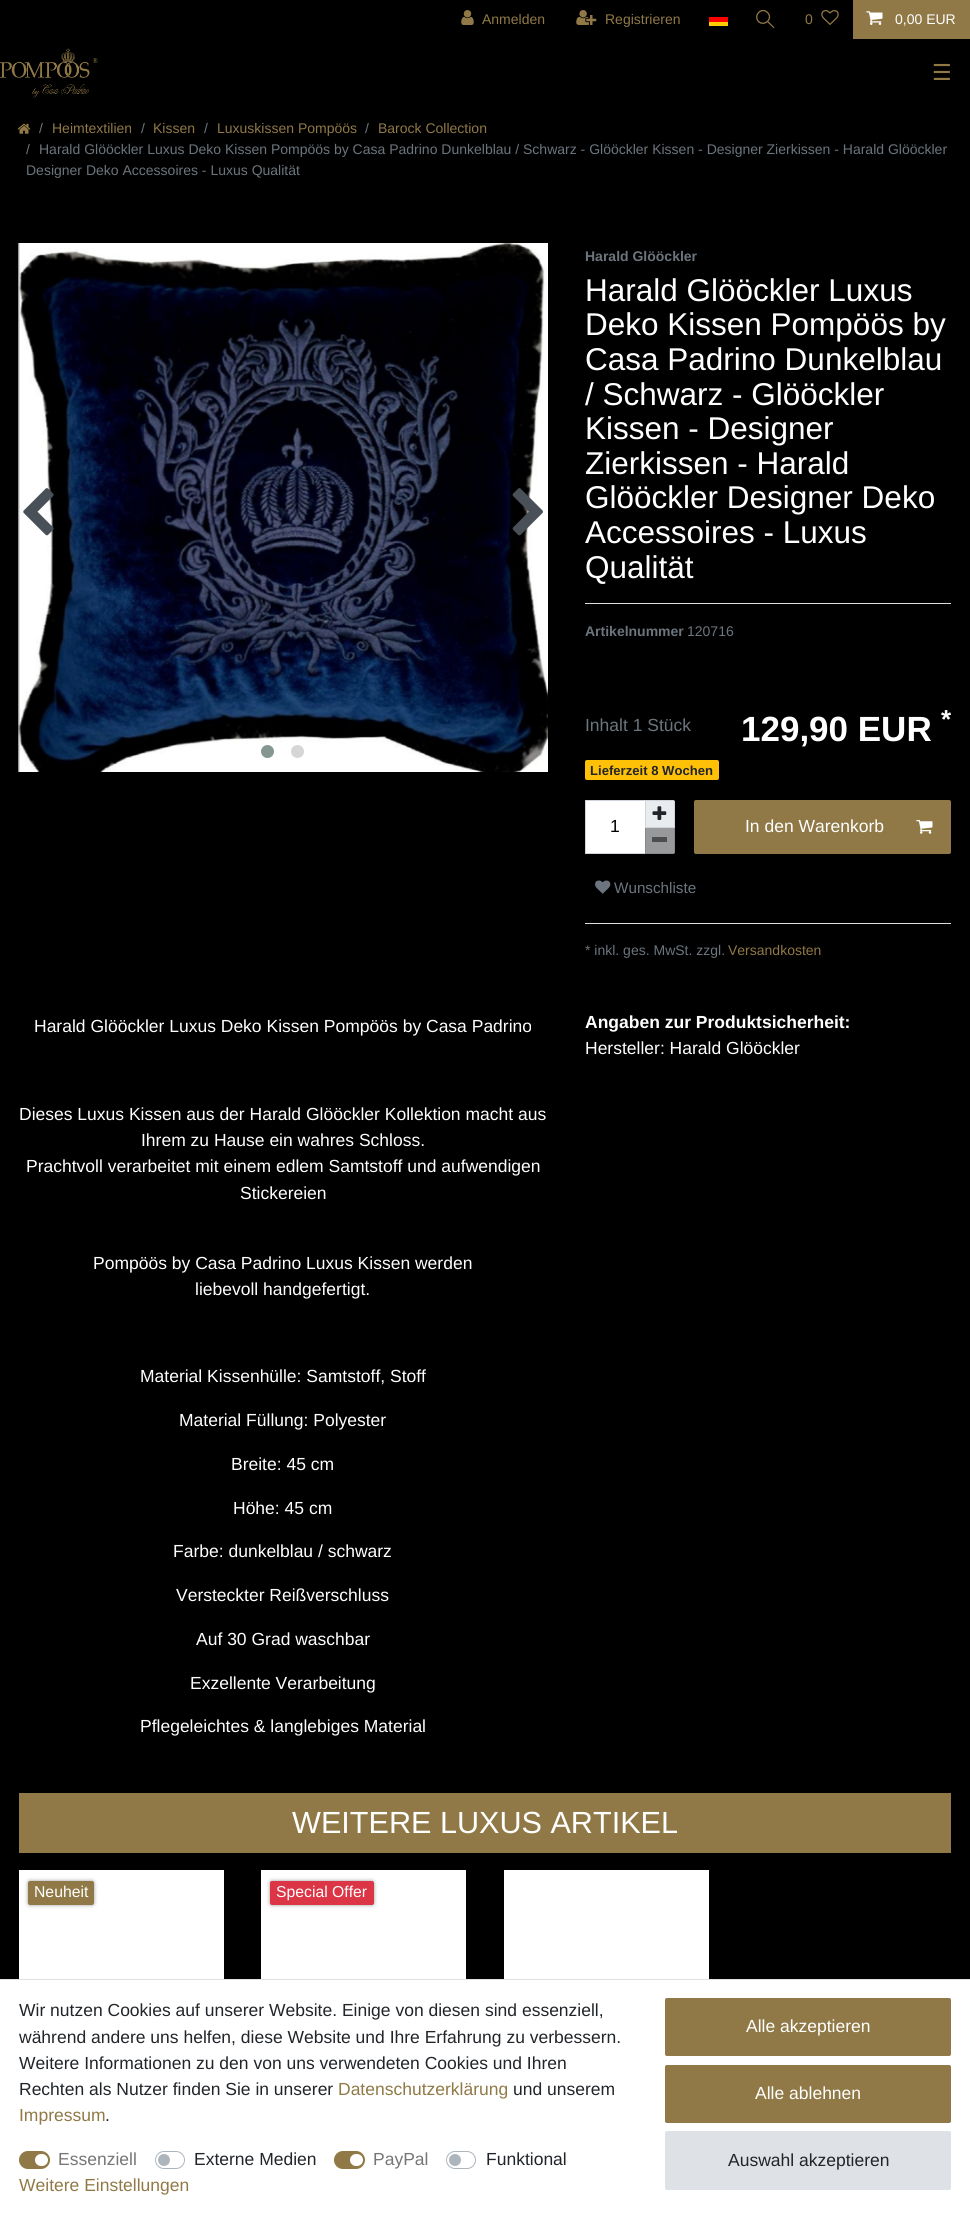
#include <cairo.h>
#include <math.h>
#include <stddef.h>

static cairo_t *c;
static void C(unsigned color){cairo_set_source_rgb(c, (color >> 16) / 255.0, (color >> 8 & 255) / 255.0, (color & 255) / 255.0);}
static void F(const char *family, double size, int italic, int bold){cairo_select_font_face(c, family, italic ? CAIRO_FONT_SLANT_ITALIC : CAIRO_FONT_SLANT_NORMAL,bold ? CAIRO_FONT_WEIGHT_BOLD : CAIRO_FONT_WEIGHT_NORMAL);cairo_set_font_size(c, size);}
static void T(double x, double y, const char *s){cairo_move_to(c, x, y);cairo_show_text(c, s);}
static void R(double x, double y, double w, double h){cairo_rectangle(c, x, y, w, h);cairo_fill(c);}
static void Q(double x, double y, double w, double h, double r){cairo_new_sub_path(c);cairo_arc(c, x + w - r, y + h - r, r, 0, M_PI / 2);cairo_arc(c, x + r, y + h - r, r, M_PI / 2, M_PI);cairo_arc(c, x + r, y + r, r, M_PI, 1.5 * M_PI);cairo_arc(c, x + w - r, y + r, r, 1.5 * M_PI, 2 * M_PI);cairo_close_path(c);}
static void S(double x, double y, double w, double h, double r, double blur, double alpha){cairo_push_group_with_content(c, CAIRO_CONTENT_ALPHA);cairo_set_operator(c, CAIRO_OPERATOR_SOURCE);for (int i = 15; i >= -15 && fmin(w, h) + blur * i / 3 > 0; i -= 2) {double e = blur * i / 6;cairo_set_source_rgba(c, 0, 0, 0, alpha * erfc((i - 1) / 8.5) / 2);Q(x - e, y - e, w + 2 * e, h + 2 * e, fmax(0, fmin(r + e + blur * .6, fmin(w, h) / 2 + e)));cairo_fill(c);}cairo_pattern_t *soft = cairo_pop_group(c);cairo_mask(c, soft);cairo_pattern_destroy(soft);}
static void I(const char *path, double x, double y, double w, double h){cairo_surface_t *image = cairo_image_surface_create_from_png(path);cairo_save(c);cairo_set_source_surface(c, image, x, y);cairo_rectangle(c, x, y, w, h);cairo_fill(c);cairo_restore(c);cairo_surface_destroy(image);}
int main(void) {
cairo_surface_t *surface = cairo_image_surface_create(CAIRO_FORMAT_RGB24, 970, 2216);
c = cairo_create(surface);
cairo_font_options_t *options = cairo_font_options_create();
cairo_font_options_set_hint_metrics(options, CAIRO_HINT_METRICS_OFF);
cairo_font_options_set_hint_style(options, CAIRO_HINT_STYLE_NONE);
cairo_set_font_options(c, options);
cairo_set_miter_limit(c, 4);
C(0x000000);
cairo_paint(c);
I("1.png",461,10,13,15);
F("Liberation Sans",14,0,0);
C(0x907946);
T(482,24,"Anmelden");
I("2.png",576,10,21,15);
T(605,24,"Registrieren");
C(0xffcc00);
R(709,22,19,4);
C(0xff0000);
R(709,17,19,5);
C(0x907946);
cairo_new_path(c);
cairo_move_to(c,773.5,28);
cairo_curve_to(c,771.5,26.5,760.5,15.5,761,15);
cairo_line_to(c,761.5,14.5);
cairo_line_to(c,774.5,27.5);
cairo_curve_to(c,774.5,28,774,28.5,773.5,28);
cairo_close_path(c);
cairo_fill(c);
C(0x000000);
cairo_new_path(c);
cairo_move_to(c,758.5,22);
cairo_curve_to(c,752,15.5,761.5,5.5,768,12);
cairo_curve_to(c,774.5,18.5,764.5,28,758.5,22);
cairo_close_path(c);
cairo_fill(c);
cairo_new_path(c);
cairo_move_to(c,758.5,21.5);
cairo_curve_to(c,753,15.5,761.5,6.5,767.5,12.5);
cairo_curve_to(c,773.5,18.5,764.5,27,758.5,21.5);
cairo_close_path(c);
C(0x907946);
cairo_set_line_width(c,1.3);
cairo_stroke(c);
T(805,24,"0");
I("3.png",821,10,18,15);
R(853,0,117,39);
I("4.png",866,11,17,14);
C(0xffffff);
T(895,24,"0,00 EUR");
I("5.png",0,47,98,52);
F("DejaVu Sans",22,0,0);
C(0x907946);
T(932,80,"☰");
I("6.png",17,123,14,11);
F("Liberation Sans",14,0,0);
C(0x6c757d);
T(39,133,"/");
C(0x907946);
T(52,133,"Heimtextilien");
C(0x6c757d);
T(141,133,"/");
C(0x907946);
T(153,133,"Kissen");
C(0x6c757d);
T(204,133,"/");
C(0x907946);
T(217,133,"Luxuskissen Pompöös");
C(0x6c757d);
T(365,133,"/");
C(0x907946);
T(378,133,"Barock Collection");
C(0x6c757d);
T(26,154,"/");
T(39,154,"Harald Glööckler Luxus Deko Kissen Pompöös by Casa Padrino Dunkelblau / Schwarz - Glööckler Kissen - Designer Zierkissen - Harald Glööckler");
T(26,175,"Designer Deko Accessoires - Luxus Qualität");
I("7.png",18,243,530,529);
I("8.png",23,488,31,48);
I("9.png",512,488,31,48);
C(0x869791);
cairo_arc(c,267.5,751.5,6.5,0,2 * M_PI);
cairo_fill(c);
C(0xd6d6d6);
cairo_arc(c,297.5,751.5,6.5,0,2 * M_PI);
cairo_fill(c);
F("Liberation Sans",14,0,1);
C(0x6c757d);
T(585,261,"Harald Glööckler");
F("Liberation Sans",31.5,0,0);
C(0xffffff);
T(585,301,"Harald Glööckler Luxus");
T(585,335,"Deko Kissen Pompöös by");
T(585,370,"Casa Padrino Dunkelblau");
T(585,405,"/ Schwarz - Glööckler");
T(585,439,"Kissen - Designer");
T(585,474,"Zierkissen - Harald");
T(585,508,"Glööckler Designer Deko");
T(585,543,"Accessoires - Luxus");
T(585,578,"Qualität");
C(0xdee2e6);
R(585,603,366,1);
F("Liberation Sans",14,0,1);
C(0x6c757d);
T(585,636,"Artikelnummer");
F("Liberation Sans",14,0,0);
T(687,636,"120716");
F("Liberation Sans",17.5,0,0);
T(585,731,"Inhalt 1 Stück");
F("Liberation Sans",26,0,1);
C(0xffffff);
T(941,728,"*");
F("Liberation Sans",35,0,1);
T(741,741,"129,90 EUR");
C(0xffc107);
Q(585,760,134,20,2);
cairo_fill(c);
F("Liberation Sans",13.1,0,1);
C(0x212529);
T(590,775,"Lieferzeit 8 Wochen");
C(0xffffff);
R(586,801,59,52);
C(0xced4da);
R(585,800,60,1);
R(585,853,60,1);
R(585,800,1,54);
F("Liberation Sans",17.5,0,0);
C(0x000000);
T(610,832,"1");
C(0xe9ecef);
cairo_new_path(c);
cairo_move_to(c,645.5,800.5);
cairo_line_to(c,673,800.5);
cairo_curve_to(c,674,800.5,674.5,801,674.5,802);
cairo_line_to(c,674.5,827.5);
cairo_line_to(c,645.5,827.5);
cairo_close_path(c);
cairo_fill_preserve(c);
C(0xced4da);
cairo_set_line_width(c,1);
cairo_stroke(c);
I("10.png",652,806,15,14);
C(0x97999b);
cairo_new_path(c);
cairo_move_to(c,645,828);
cairo_line_to(c,675,828);
cairo_line_to(c,675,852);
cairo_curve_to(c,675,853,674,854,673,854);
cairo_line_to(c,645,854);
cairo_close_path(c);
cairo_fill(c);
C(0x868a8e);
R(674,828,1,25);
R(645,853,29,1);
R(645,828,1,26);
C(0x4a4e51);
R(652,837,15,5);
C(0x907946);
Q(694.5,800.5,256,53,1.5);
cairo_fill_preserve(c);
cairo_stroke(c);
C(0xffffff);
T(745,832,"In den Warenkorb");
I("11.png",916,820,17,14);
I("12.png",595,880,16,14);
F("Liberation Sans",15.25,0,0);
C(0x6c757d);
T(614,893,"Wunschliste");
C(0xdee2e6);
R(585,923,366,1);
F("Liberation Sans",14,0,0);
C(0x6c757d);
T(585,955,"* inkl. ges. MwSt. zzgl.");
C(0x907946);
T(728,955,"Versandkosten");
F("Liberation Sans",17.5,0,0);
C(0xffffff);
T(34,1032,"Harald Glööckler Luxus Deko Kissen Pompöös by Casa Padrino");
T(19,1120,"Dieses Luxus Kissen aus der Harald Glööckler Kollektion macht aus");
T(141,1146,"Ihrem zu Hause ein wahres Schloss.");
T(26,1172,"Prachtvoll verarbeitet mit einem edlem Samtstoff und aufwendigen");
T(240,1199,"Stickereien");
T(93,1269,"Pompöös by Casa Padrino Luxus Kissen werden");
T(195,1295,"liebevoll handgefertigt.");
T(140,1382,"Material Kissenhülle: Samtstoff, Stoff");
T(179,1426,"Material Füllung: Polyester");
T(231,1470,"Breite: 45 cm");
T(233,1514,"Höhe: 45 cm");
T(173,1557,"Farbe: dunkelblau / schwarz");
T(176,1601,"Versteckter Reißverschluss");
T(196,1645,"Auf 30 Grad waschbar");
T(190,1689,"Exzellente Verarbeitung");
T(140,1732,"Pflegeleichtes & langlebiges Material");
F("Liberation Sans",17.5,0,1);
T(585,1028,"Angaben zur Produktsicherheit:");
F("Liberation Sans",17.5,0,0);
T(585,1054,"Hersteller: Harald Glööckler");
C(0x907946);
R(19,1793,932,60);
F("Liberation Sans",30.6,0,0);
C(0xffffff);
T(292,1833,"WEITERE LUXUS ARTIKEL");
R(19,1870,205,109);
C(0x000000);
S(28,1881,66,24,2,2,.4);
C(0x907946);
Q(28,1881,66,24,2);
cairo_fill(c);
F("Liberation Sans",15.75,0,0);
C(0xffffff);
T(34,1897,"Neuheit");
R(261,1870,205,109);
C(0x000000);
S(270,1881,104,24,2,2,.4);
C(0xdc3545);
Q(270,1881,104,24,2);
cairo_fill(c);
C(0xffffff);
T(276,1897,"Special Offer");
R(504,1870,205,109);
R(0,1980,970,236);
C(0xdee2e6);
R(0,1979,970,1);
F("Liberation Sans",17.5,0,0);
C(0x212529);
T(19,2016,"Wir nutzen Cookies auf unserer Website. Einige von diesen sind essenziell,");
T(19,2043,"während andere uns helfen, diese Website und Ihre Erfahrung zu verbessern.");
T(19,2069,"Weitere Informationen zu den von uns verwendeten Cookies und Ihren");
T(19,2095,"Rechten als Nutzer finden Sie in unserer");
C(0x907946);
T(338,2095,"Datenschutzerklärung");
C(0x212529);
T(513,2095,"und unserem");
C(0x907946);
T(19,2121,"Impressum");
C(0x212529);
T(105,2121,".");
C(0x907946);
Q(19.5,2151.5,30,17,8.5);
cairo_fill_preserve(c);
cairo_stroke(c);
C(0x767676);
T(58,2165,"Essenziell");
C(0xffffff);
Q(35,2154,13,12,6);
cairo_fill(c);
Q(155.5,2151.5,29,17,8.5);
C(0xadb5bd);
cairo_stroke(c);
C(0x212529);
T(194,2165,"Externe Medien");
C(0xadb5bd);
cairo_new_path(c);
cairo_arc(c,164,2160,6,0,2 * M_PI);
cairo_fill(c);
C(0x907946);
Q(334.5,2151.5,30,17,8.5);
cairo_fill_preserve(c);
cairo_stroke(c);
C(0x767676);
T(373,2165,"PayPal");
C(0xffffff);
Q(350,2154,13,12,6);
cairo_fill(c);
Q(446.5,2151.5,29,17,8.5);
C(0xadb5bd);
cairo_stroke(c);
C(0x212529);
T(486,2165,"Funktional");
C(0xadb5bd);
cairo_new_path(c);
cairo_arc(c,455,2160,6,0,2 * M_PI);
cairo_fill(c);
C(0x907946);
T(19,2191,"Weitere Einstellungen");
Q(665.5,1998.5,285,57,1.5);
cairo_fill_preserve(c);
cairo_stroke(c);
C(0xffffff);
T(746,2032,"Alle akzeptieren");
C(0x907946);
Q(665.5,2065.5,285,57,1.5);
cairo_fill_preserve(c);
cairo_stroke(c);
C(0xffffff);
T(755,2099,"Alle ablehnen");
C(0xdee2e6);
Q(665.5,2131.5,285,58,1.5);
cairo_fill_preserve(c);
cairo_stroke(c);
C(0x212529);
T(728,2166,"Auswahl akzeptieren");
cairo_surface_write_to_png(surface, "o.png");
cairo_font_options_destroy(options);
cairo_destroy(c);
cairo_surface_destroy(surface);
return 0;
}
